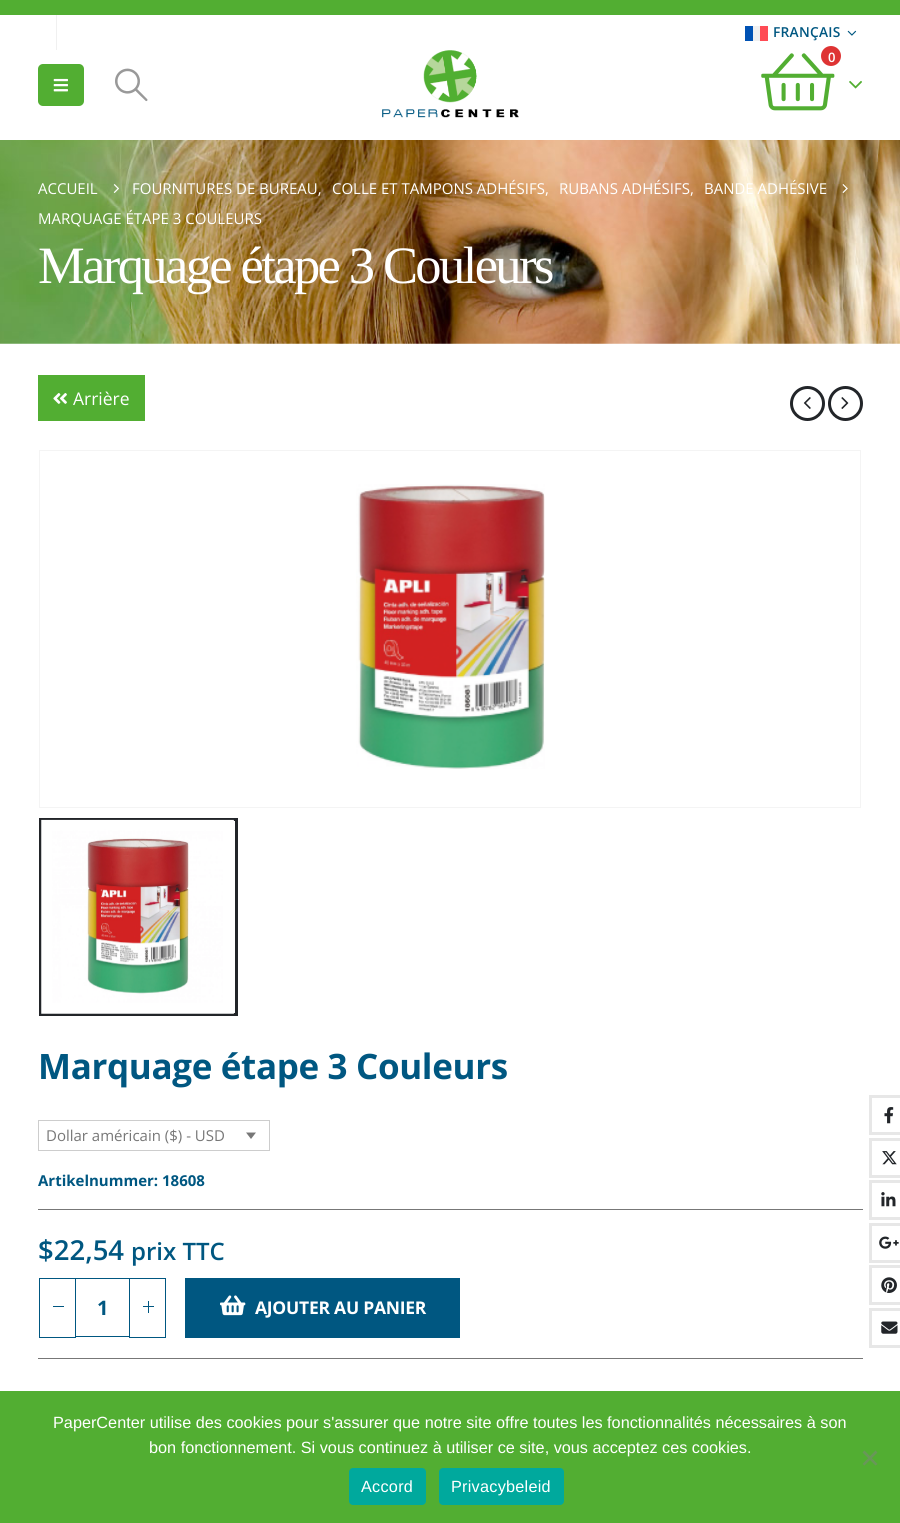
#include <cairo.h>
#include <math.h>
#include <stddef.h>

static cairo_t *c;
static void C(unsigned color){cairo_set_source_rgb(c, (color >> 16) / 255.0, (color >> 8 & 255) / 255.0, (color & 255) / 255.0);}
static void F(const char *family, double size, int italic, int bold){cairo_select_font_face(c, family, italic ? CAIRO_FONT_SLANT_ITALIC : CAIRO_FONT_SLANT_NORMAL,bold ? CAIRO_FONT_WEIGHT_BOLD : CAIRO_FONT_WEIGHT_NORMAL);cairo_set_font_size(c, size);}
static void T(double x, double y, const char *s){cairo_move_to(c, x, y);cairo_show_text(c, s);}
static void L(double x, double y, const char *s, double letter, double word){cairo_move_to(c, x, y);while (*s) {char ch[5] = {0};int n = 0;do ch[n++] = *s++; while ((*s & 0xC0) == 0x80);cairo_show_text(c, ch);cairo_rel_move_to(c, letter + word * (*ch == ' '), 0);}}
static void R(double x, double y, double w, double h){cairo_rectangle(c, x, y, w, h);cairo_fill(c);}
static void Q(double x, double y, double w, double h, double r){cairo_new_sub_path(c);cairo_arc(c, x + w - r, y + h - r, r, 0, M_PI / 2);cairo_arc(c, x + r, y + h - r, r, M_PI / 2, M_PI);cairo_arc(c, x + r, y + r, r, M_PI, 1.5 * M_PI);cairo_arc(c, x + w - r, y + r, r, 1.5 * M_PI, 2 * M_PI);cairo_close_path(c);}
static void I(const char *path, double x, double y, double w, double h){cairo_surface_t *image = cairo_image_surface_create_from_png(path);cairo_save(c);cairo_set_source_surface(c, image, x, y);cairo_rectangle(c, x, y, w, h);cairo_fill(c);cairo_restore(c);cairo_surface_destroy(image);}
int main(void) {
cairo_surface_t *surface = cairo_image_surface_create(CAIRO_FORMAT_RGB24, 900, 1523);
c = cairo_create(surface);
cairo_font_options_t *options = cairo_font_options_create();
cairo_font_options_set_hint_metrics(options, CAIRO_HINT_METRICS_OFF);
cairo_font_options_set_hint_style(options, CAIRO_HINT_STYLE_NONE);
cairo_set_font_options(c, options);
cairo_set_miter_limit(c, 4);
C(0xffffff);
cairo_paint(c);
C(0x52ae32);
R(0,0,900,15);
C(0xf0f0f0);
R(56,15,1,35);
C(0x0052b4);
R(745,26,8,15);
C(0xf0f0f0);
R(753,26,7,15);
C(0xff4b55);
R(760,26,8,15);
F("Open Sans SemiBold",13.75,0,0);
C(0x005781);
L(773,37,"FRANÇAIS",.25,0);
I("1.png",847,30,10,6);
I("2.png",382,50,137,68);
I("3.png",761,53,74,58);
C(0xde3333);
cairo_arc(c,831,56,10,0,2 * M_PI);
cairo_fill(c);
F("Open Sans SemiBold",13,0,0);
C(0xffffff);
T(828,62,"0");
I("4.png",849,80,13,9);
C(0x52ae32);
Q(38,64,46,42,5);
cairo_fill(c);
I("5.png",53,78,15,14);
I("6.png",115,68,33,34);
I("7.png",0,140,900,204);
F("Open Sans",15,0,0);
C(0xffffff);
T(38,194,"ACCUEIL");
I("8.png",113,184,6,9);
T(132,194,"FOURNITURES DE BUREAU,");
T(332,194,"COLLE ET TAMPONS ADHÉSIFS,");
T(559,194,"RUBANS ADHÉSIFS,");
T(704,194,"BANDE ADHÉSIVE");
I("9.png",842,184,6,9);
T(38,224,"MARQUAGE ÉTAPE 3 COULEURS");
F("Liberation Serif",52.5,0,0);
L(38,283,"Marquage étape 3 Couleurs",-2.6,0);
C(0x52ae32);
R(38,375,107,46);
I("10.png",53,393,14,11);
F("Open Sans",17.5,0,0);
C(0xffffff);
T(73,405,"Arrière");
cairo_new_path(c);
cairo_arc(c,807.5,403.5,16,0,2 * M_PI);
C(0x222529);
cairo_set_line_width(c,3);
cairo_stroke(c);
I("11.png",803,397,8,12);
cairo_arc(c,845.5,403.5,16,0,2 * M_PI);
cairo_stroke(c);
I("12.png",841,397,8,12);
cairo_rectangle(c,39.5,450.5,821,357);
C(0xf4f4f4);
cairo_set_line_width(c,1);
cairo_stroke(c);
I("13.png",356,484,189,285);
cairo_rectangle(c,40.5,819.5,196,195);
C(0x222529);
cairo_set_line_width(c,3);
cairo_stroke(c);
I("14.png",41,819,193,195);
F("Open Sans",35,0,1);
C(0x005781);
L(38,1079,"Marquage étape 3 Couleurs",-.35,0);
cairo_rectangle(c,38.5,1120.5,231,30);
C(0xcdcdcd);
cairo_set_line_width(c,1);
cairo_stroke(c);
F("Open Sans",15,0,0);
C(0x777777);
T(46,1141,"Dollar américain ($) - USD");
cairo_new_path(c);
cairo_move_to(c,246,1132.5);
cairo_line_to(c,256,1132.5);
cairo_line_to(c,251,1139);
cairo_close_path(c);
cairo_fill(c);
F("Open Sans",15,0,1);
C(0x005781);
T(38,1186,"Artikelnummer: 18608");
cairo_rectangle(c,870.5,1096.5,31,37);
C(0xe7e7e7);
cairo_set_line_width(c,3);
cairo_stroke(c);
I("15.png",884,1107,10,17);
cairo_rectangle(c,870.5,1139.5,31,37);
cairo_stroke(c);
I("16.png",882,1151,15,14);
cairo_rectangle(c,870.5,1181.5,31,37);
cairo_stroke(c);
I("17.png",881,1192,15,15);
cairo_rectangle(c,870.5,1224.5,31,37);
cairo_stroke(c);
I("18.png",879,1236,20,13);
cairo_rectangle(c,870.5,1266.5,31,37);
cairo_stroke(c);
I("19.png",881,1277,16,16);
cairo_rectangle(c,870.5,1309.5,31,37);
cairo_stroke(c);
I("20.png",881,1321,17,13);
C(0x777777);
R(38,1209,825,1);
R(38,1358,825,1);
F("Open Sans SemiBold",27.5,0,0);
C(0x005781);
T(38,1260,"$22,54");
F("Open Sans SemiBold",24,0,0);
T(131,1260,"prix TTC");
R(75,1278,55,1);
R(75,1336,55,1);
cairo_rectangle(c,39.5,1278.5,36,59);
cairo_set_line_width(c,1);
cairo_stroke(c);
R(53,1306,11,1);
F("Open Sans",20,0,1);
T(97,1315,"1");
cairo_rectangle(c,129.5,1278.5,36,59);
cairo_stroke(c);
R(143,1306,11,1);
R(148,1301,1,12);
R(185,1278,275,60);
I("21.png",220,1295,26,21);
F("Open Sans",17.5,0,1);
C(0xffffff);
L(255,1314,"AJOUTER AU PANIER",-.25,0);
C(0x52ae32);
R(0,1391,900,132);
F("Liberation Sans",16.25,0,0);
C(0xffffff);
T(53,1428,"PaperCenter utilise des cookies pour s'assurer que notre site offre toutes les fonctionnalités nécessaires à son");
T(149,1453,"bon fonctionnement. Si vous continuez à utiliser ce site, vous acceptez ces cookies.");
C(0x699759);
cairo_new_path(c);
cairo_move_to(c,875.5,1450.5);
cairo_line_to(c,877.5,1452.5);
cairo_line_to(c,864.5,1465.5);
cairo_line_to(c,862.5,1464);
cairo_close_path(c);
cairo_fill(c);
cairo_new_path(c);
cairo_move_to(c,862.5,1452.5);
cairo_line_to(c,864.5,1450.5);
cairo_line_to(c,877.5,1464);
cairo_line_to(c,875.5,1465.5);
cairo_close_path(c);
cairo_fill(c);
C(0x00a99d);
Q(349,1468,77,37,4);
cairo_fill(c);
C(0xffffff);
L(361,1492,"Accord",.25,0);
C(0x00a99d);
Q(439,1468,125,37,4);
cairo_fill(c);
C(0xffffff);
L(451,1492,"Privacybeleid",.25,0);
cairo_surface_write_to_png(surface, "o.png");
cairo_font_options_destroy(options);
cairo_destroy(c);
cairo_surface_destroy(surface);
return 0;
}
